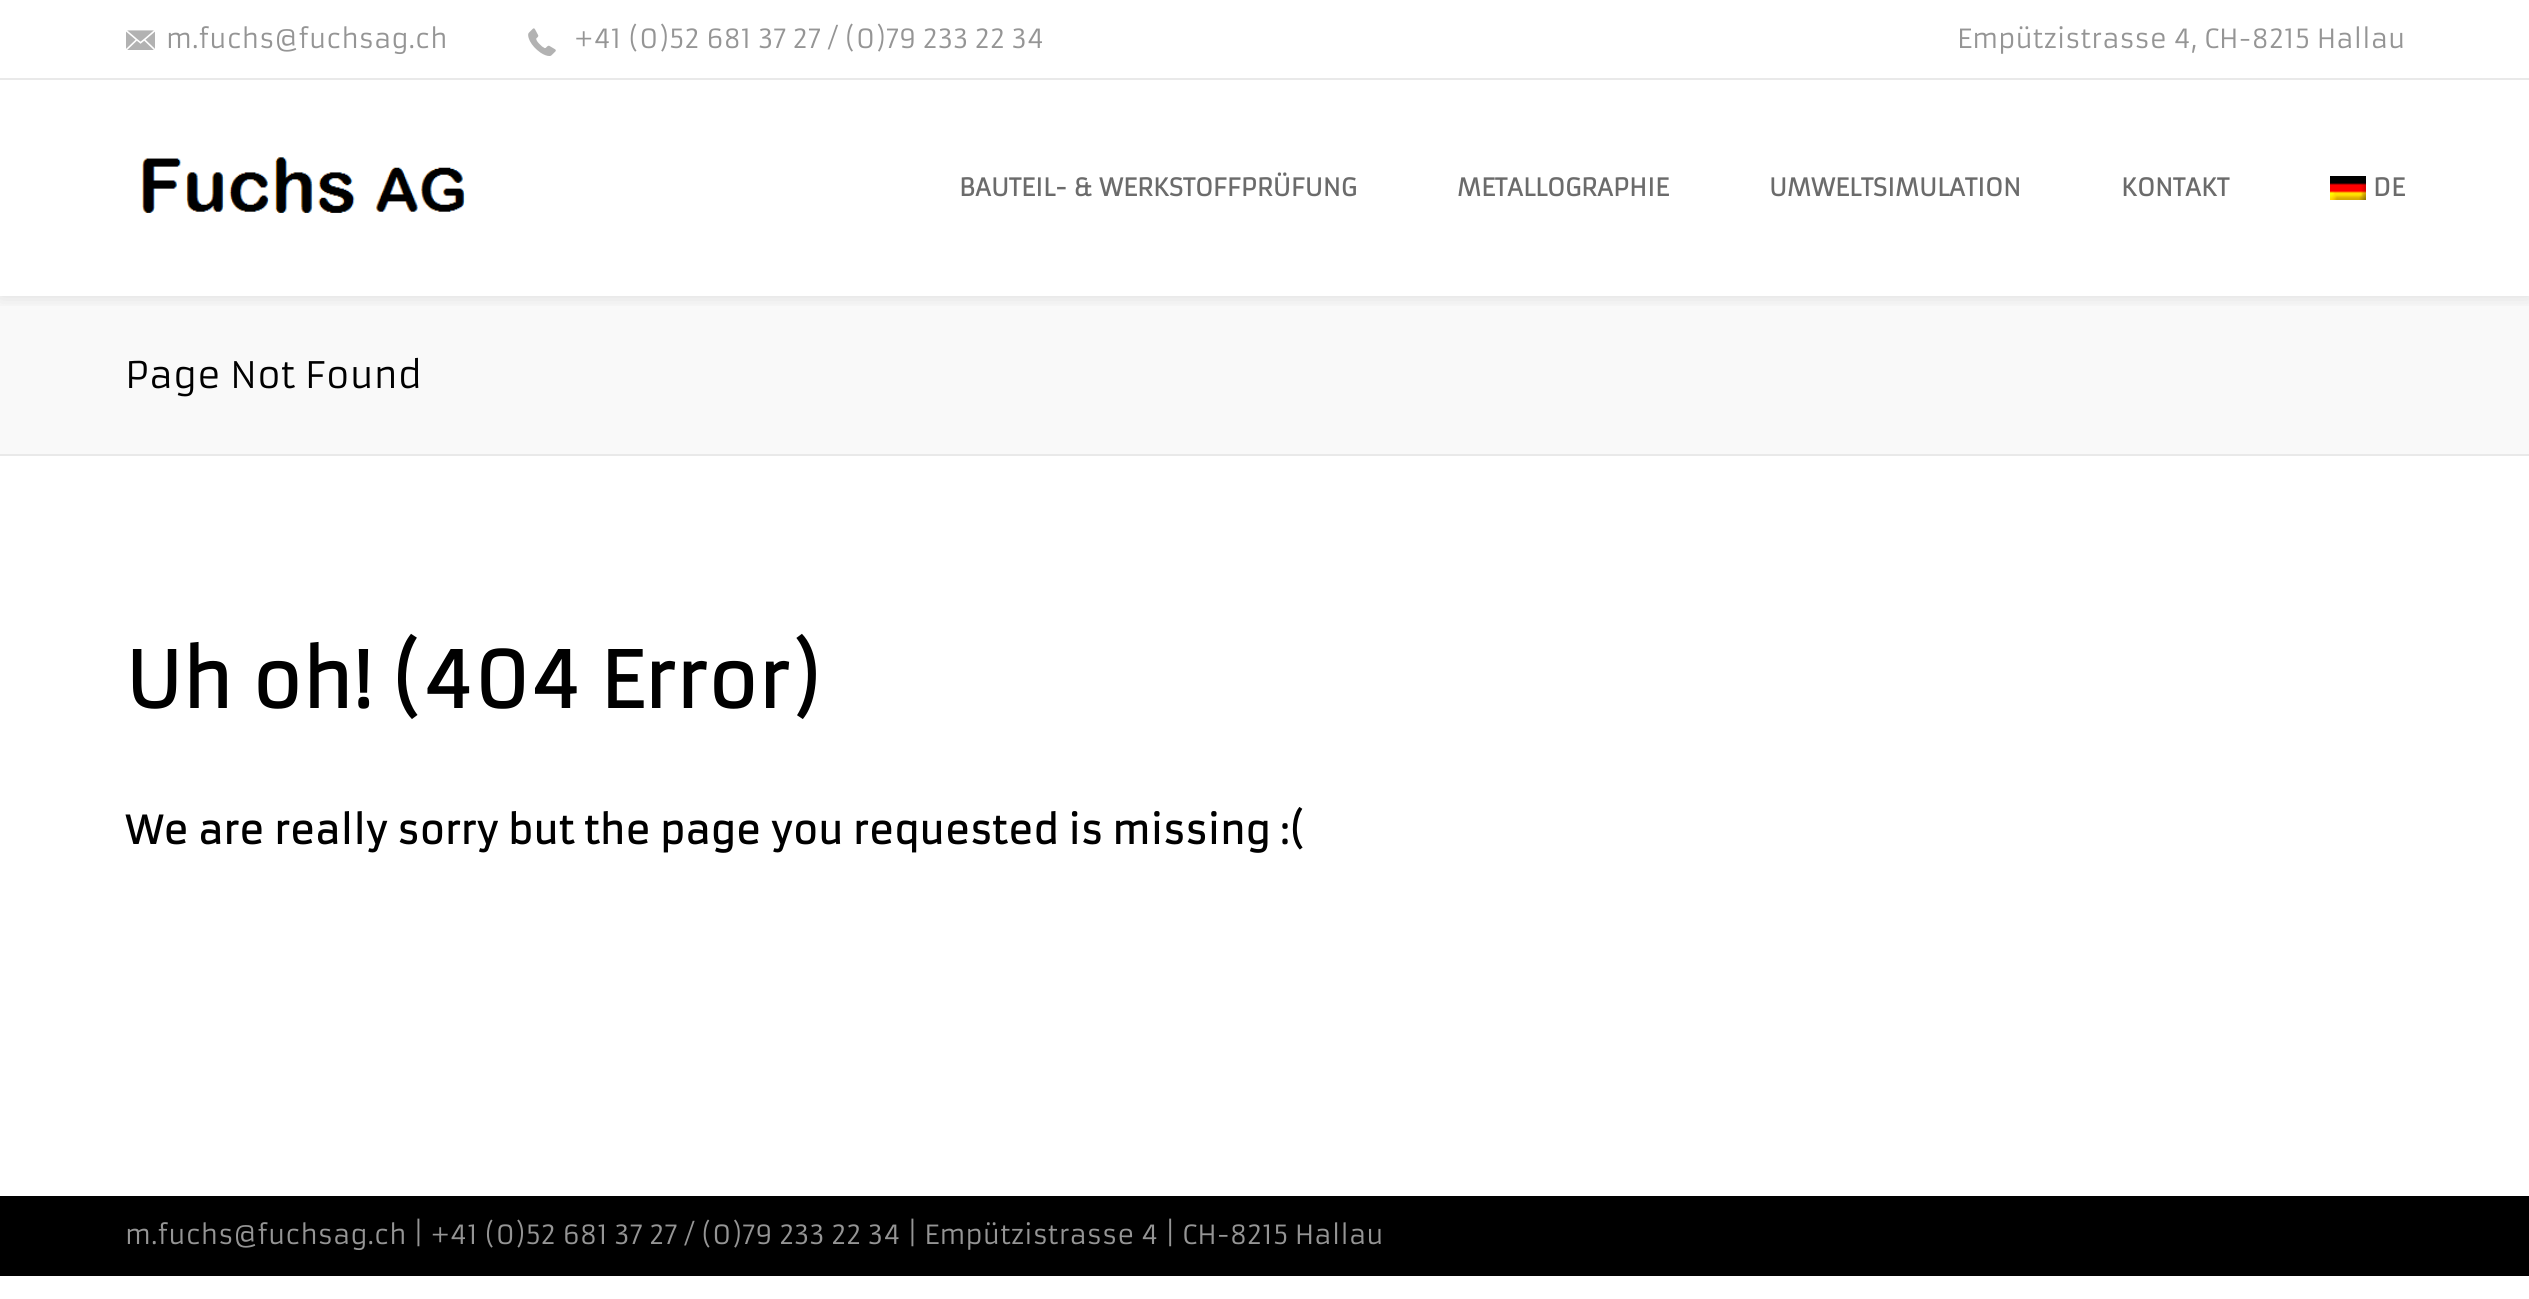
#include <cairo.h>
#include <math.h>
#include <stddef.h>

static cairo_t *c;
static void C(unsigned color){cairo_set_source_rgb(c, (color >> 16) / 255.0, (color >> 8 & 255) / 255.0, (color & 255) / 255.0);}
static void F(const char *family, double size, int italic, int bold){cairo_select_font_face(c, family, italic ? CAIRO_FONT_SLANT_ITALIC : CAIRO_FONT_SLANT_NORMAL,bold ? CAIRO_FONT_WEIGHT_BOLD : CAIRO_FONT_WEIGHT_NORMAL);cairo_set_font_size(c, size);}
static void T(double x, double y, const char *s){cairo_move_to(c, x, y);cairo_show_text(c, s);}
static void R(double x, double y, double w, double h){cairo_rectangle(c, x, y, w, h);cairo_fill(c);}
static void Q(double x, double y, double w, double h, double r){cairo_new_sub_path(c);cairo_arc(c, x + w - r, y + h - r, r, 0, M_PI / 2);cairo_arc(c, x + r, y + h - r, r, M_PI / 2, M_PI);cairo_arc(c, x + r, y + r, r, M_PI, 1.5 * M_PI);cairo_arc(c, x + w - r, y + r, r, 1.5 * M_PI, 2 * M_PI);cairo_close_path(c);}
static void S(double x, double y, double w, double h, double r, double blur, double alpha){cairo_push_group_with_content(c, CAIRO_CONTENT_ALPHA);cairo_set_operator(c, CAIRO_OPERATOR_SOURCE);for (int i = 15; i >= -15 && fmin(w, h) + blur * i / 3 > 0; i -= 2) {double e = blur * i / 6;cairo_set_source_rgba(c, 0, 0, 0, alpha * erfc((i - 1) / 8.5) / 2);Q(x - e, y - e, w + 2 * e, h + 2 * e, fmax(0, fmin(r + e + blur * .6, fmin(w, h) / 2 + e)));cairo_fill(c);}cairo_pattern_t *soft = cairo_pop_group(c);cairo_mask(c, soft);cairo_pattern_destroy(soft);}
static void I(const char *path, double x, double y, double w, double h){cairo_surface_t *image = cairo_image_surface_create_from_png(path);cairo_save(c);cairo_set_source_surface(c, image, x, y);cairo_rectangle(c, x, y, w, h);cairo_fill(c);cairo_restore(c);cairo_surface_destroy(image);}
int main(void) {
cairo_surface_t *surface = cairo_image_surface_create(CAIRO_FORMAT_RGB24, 2529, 1299);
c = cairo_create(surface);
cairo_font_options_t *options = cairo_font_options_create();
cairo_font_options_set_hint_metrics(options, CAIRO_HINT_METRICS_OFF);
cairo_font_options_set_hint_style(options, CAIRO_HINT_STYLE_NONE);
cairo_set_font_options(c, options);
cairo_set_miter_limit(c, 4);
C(0xffffff);
cairo_paint(c);
C(0xf9f9f9);
R(0,296,2529,158);
cairo_save(c);
cairo_rectangle(c,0,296,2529,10);
cairo_clip(c);
C(0x000000);
S(0,80,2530,216,0,10,.12);
cairo_restore(c);
C(0xffffff);
R(0,66,2529,12);
C(0xe9e9e9);
R(0,78,2529,2);
I("1.png",126,30,29,20);
F("Armata",26,0,0);
C(0x959595);
T(166,48,"m.fuchs@fuchsag.ch");
I("2.png",528,28,28,28);
T(574,48,"+41 (0)52 681 37 27 / (0)79 233 22 34");
T(1957,48,"Empützistrasse 4, CH-8215 Hallau");
I("3.png",142,157,324,56);
F("Armata",24,0,1);
C(0x6b6b6b);
T(959,196,"BAUTEIL- & WERKSTOFFPRÜFUNG");
T(1457,196,"METALLOGRAPHIE");
T(1769,196,"UMWELTSIMULATION");
T(2121,196,"KONTAKT");
I("4.png",2330,176,36,24);
T(2373,196,"DE");
C(0xe9e9e9);
R(0,454,2529,2);
F("Armata",36,0,0);
C(0x000000);
T(125,388,"Page Not Found");
F("Armata",76,0,1);
T(125,708,"Uh oh! (404 Error)");
F("Armata",38,0,1);
T(125,844,"We are really sorry but the page you requested is missing :(");
R(0,1196,2529,80);
F("Armata",26,0,0);
C(0x959595);
T(125,1244,"m.fuchs@fuchsag.ch | +41 (0)52 681 37 27 / (0)79 233 22 34 | Empützistrasse 4 | CH-8215 Hallau");
cairo_surface_write_to_png(surface, "o.png");
cairo_font_options_destroy(options);
cairo_destroy(c);
cairo_surface_destroy(surface);
return 0;
}
